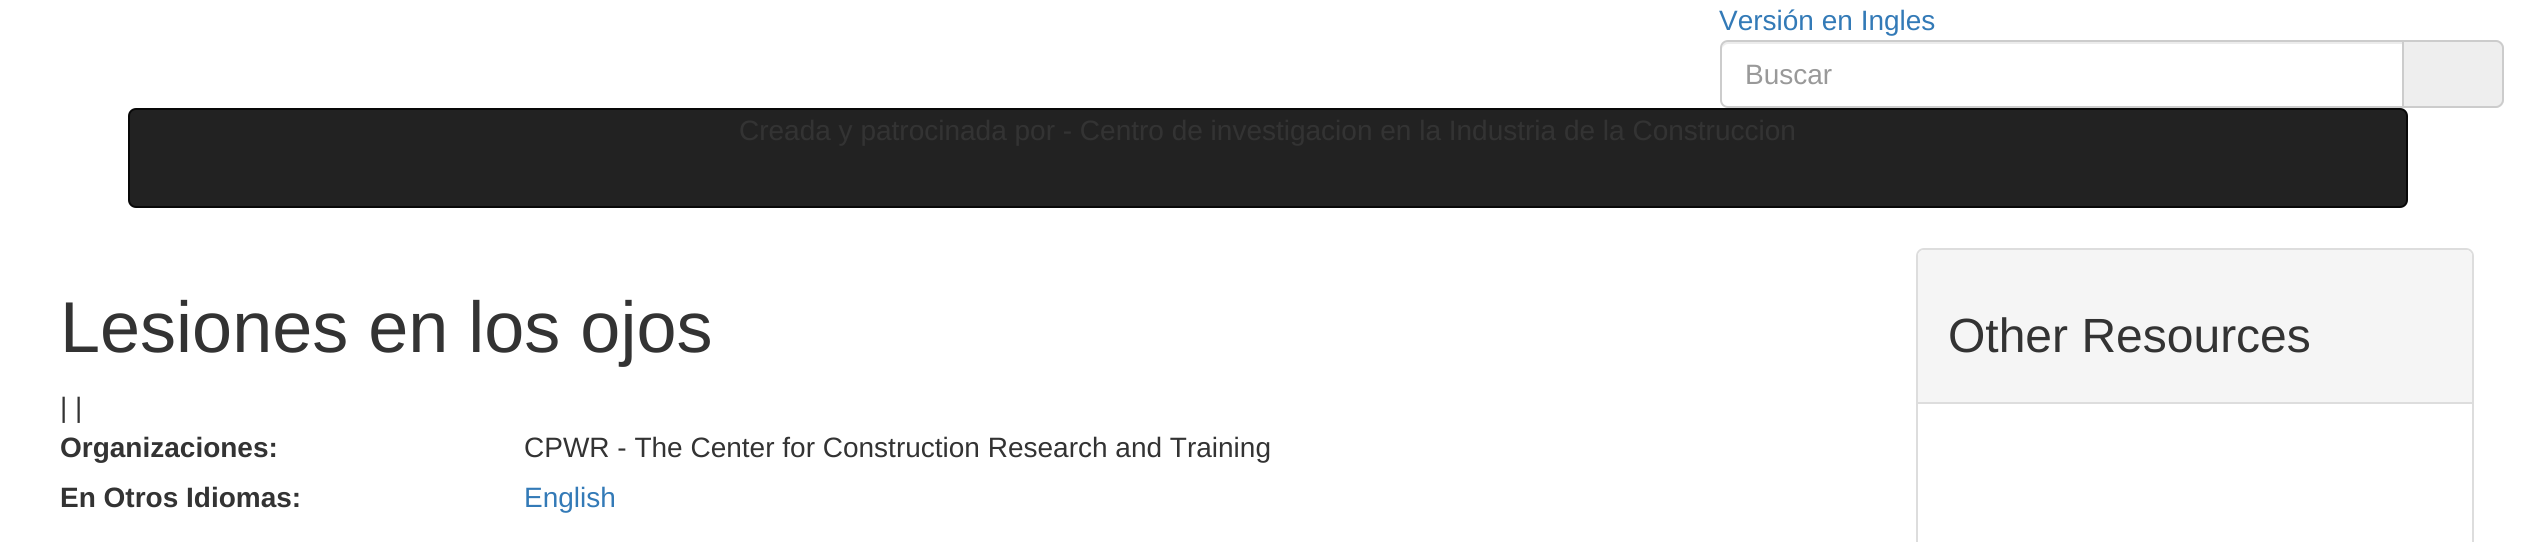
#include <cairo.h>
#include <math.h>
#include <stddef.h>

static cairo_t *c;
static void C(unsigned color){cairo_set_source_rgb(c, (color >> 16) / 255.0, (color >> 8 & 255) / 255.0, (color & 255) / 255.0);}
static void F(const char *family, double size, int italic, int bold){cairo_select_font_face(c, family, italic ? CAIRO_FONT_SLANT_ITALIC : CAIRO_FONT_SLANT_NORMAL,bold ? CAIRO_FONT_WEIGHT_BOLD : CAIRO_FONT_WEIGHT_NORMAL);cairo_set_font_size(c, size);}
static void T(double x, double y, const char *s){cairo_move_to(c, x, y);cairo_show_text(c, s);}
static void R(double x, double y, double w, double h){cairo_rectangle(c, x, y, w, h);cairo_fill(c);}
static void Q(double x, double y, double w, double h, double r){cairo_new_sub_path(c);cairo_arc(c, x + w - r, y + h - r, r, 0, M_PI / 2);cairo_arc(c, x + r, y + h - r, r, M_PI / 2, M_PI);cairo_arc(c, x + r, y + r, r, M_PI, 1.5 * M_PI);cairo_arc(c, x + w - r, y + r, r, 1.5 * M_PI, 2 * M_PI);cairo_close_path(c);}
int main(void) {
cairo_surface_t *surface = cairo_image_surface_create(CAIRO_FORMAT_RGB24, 2533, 542);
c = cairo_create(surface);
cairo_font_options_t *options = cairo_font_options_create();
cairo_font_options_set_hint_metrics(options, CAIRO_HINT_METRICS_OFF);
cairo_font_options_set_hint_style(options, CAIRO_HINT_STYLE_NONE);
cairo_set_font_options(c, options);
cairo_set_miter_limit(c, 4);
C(0xffffff);
cairo_paint(c);
F("Liberation Sans",28,0,0);
C(0x337ab7);
T(1719,30,"Versión en Ingles");
C(0xececec);
cairo_new_path(c);
cairo_move_to(c,1728,44);
cairo_line_to(c,2402,44);
cairo_line_to(c,2402,42);
cairo_line_to(c,1728,42);
cairo_curve_to(c,1723,42,1722,46,1722,50);
cairo_curve_to(c,1722,47,1725,44,1728,44);
cairo_close_path(c);
cairo_fill(c);
cairo_new_path(c);
cairo_move_to(c,1728,41);
cairo_line_to(c,2403,41);
cairo_line_to(c,2403,107);
cairo_line_to(c,1728,107);
cairo_curve_to(c,1724,107,1721,104,1721,100);
cairo_line_to(c,1721,48);
cairo_curve_to(c,1721,44,1724,41,1728,41);
cairo_close_path(c);
C(0xcccccc);
cairo_stroke(c);
C(0x999999);
T(1745,84,"Buscar");
C(0xeeeeee);
cairo_new_path(c);
cairo_move_to(c,2404,40);
cairo_line_to(c,2496,40);
cairo_curve_to(c,2500.5,40,2504,43.5,2504,48);
cairo_line_to(c,2504,100);
cairo_curve_to(c,2504,104.5,2500.5,108,2496,108);
cairo_line_to(c,2404,108);
cairo_close_path(c);
cairo_fill(c);
C(0xcccccc);
cairo_set_fill_rule(c,CAIRO_FILL_RULE_EVEN_ODD);
cairo_new_path(c);
cairo_move_to(c,2404,40);
cairo_line_to(c,2496,40);
cairo_curve_to(c,2500,40,2504,44,2504,48);
cairo_line_to(c,2504,100);
cairo_curve_to(c,2504,104,2500,108,2496,108);
cairo_line_to(c,2404,108);
cairo_close_path(c);
cairo_move_to(c,2404,42);
cairo_line_to(c,2496,42);
cairo_curve_to(c,2499,42,2502,45,2502,48);
cairo_line_to(c,2502,100);
cairo_curve_to(c,2502,103,2499,106,2496,106);
cairo_line_to(c,2404,106);
cairo_close_path(c);
cairo_fill(c);
C(0x222222);
Q(129,109,2278,98,7);
cairo_fill_preserve(c);
C(0x080808);
cairo_stroke(c);
C(0x333333);
T(739,140,"Creada y patrocinada por - Centro de investigacion en la Industria de la Construccion");
F("Liberation Sans",72,0,0);
T(60,352,"Lesiones en los ojos");
F("Liberation Sans",28,0,0);
T(60,417,"| |");
F("Liberation Sans",28,0,1);
T(60,457,"Organizaciones:");
F("Liberation Sans",28,0,0);
T(524,457,"CPWR - The Center for Construction Research and Training");
F("Liberation Sans",28,0,1);
T(60,507,"En Otros Idiomas:");
F("Liberation Sans",28,0,0);
C(0x337ab7);
T(524,507,"English");
Q(1917,249,556,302,7);
C(0xdddddd);
cairo_stroke(c);
C(0xf5f5f5);
cairo_new_path(c);
cairo_move_to(c,1924,250);
cairo_line_to(c,2466,250);
cairo_curve_to(c,2469.5,250,2472,252.5,2472,256);
cairo_line_to(c,2472,404);
cairo_line_to(c,1918,404);
cairo_line_to(c,1918,256);
cairo_curve_to(c,1918,252.5,1920.5,250,1924,250);
cairo_close_path(c);
cairo_fill(c);
C(0xdddddd);
R(1918,402,554,2);
F("Liberation Sans",48,0,0);
C(0x333333);
T(1948,352,"Other Resources");
cairo_surface_write_to_png(surface, "o.png");
cairo_font_options_destroy(options);
cairo_destroy(c);
cairo_surface_destroy(surface);
return 0;
}
